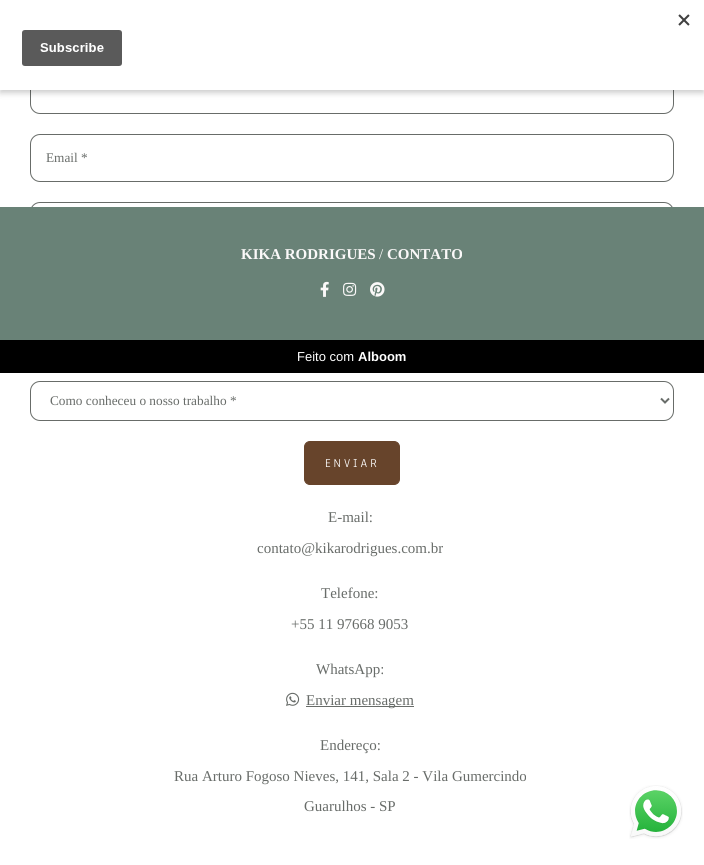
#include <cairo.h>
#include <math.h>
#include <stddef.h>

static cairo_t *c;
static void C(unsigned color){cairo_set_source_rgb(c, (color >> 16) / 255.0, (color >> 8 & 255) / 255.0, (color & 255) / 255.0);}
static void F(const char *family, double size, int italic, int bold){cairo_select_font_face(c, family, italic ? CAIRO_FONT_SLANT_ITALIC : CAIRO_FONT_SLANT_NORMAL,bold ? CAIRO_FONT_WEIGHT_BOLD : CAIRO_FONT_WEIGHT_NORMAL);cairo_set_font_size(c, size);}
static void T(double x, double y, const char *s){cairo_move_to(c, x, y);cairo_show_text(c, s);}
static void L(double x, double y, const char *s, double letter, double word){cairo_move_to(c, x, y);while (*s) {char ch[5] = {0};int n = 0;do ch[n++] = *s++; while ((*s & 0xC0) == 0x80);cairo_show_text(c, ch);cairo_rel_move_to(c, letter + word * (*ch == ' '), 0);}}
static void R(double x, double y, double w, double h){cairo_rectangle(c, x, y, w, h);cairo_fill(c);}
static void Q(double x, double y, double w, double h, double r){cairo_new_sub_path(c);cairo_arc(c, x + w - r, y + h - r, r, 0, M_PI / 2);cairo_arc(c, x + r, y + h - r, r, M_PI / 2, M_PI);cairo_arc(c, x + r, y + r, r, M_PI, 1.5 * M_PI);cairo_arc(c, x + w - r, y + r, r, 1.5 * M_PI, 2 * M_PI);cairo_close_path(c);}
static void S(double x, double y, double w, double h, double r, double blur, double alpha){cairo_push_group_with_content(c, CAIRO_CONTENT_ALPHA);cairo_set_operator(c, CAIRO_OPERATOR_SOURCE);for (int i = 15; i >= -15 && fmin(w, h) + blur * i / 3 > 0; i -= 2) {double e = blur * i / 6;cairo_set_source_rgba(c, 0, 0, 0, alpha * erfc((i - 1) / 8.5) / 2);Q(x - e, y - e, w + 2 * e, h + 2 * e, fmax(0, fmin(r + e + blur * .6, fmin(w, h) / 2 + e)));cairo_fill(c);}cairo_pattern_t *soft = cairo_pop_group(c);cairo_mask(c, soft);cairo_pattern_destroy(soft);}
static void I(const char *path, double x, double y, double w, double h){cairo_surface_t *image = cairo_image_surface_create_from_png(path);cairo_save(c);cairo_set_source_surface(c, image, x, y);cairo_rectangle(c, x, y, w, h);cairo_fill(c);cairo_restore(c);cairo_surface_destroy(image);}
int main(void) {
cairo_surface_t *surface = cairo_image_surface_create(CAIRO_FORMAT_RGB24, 704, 865);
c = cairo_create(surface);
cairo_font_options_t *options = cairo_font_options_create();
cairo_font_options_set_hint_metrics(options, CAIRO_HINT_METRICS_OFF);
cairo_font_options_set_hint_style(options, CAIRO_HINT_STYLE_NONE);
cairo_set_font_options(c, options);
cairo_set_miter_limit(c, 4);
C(0xffffff);
cairo_paint(c);
Q(30.5,66.5,643,47,9.5);
C(0x686c69);
cairo_set_line_width(c,1);
cairo_stroke(c);
C(0x000000);
S(0,3,704,90,0,3,.2);
C(0xffffff);
R(0,0,704,90);
I("1.png",22,14,668,52);
Q(30.5,134.5,643,47,9.5);
C(0x686c69);
cairo_stroke(c);
F("Liberation Serif",13.3,0,0);
T(46,162,"Email *");
Q(30.5,202.5,643,39,9.5);
cairo_stroke(c);
Q(30.5,381.5,643,39,9.5);
cairo_stroke(c);
cairo_new_path(c);
cairo_move_to(c,661,398.5);
cairo_line_to(c,665,402.5);
cairo_line_to(c,669,398.5);
cairo_set_line_width(c,2);
cairo_stroke(c);
T(50,405,"Como conheceu o nosso trabalho *");
C(0x67442b);
Q(304.5,441.5,95,43,5.5);
cairo_fill_preserve(c);
cairo_set_line_width(c,1);
cairo_stroke(c);
F("Anaheim",12.5,0,0);
C(0xffffff);
L(325,467,"ENVIAR",3,0);
F("Liberation Serif",15,0,0);
C(0x686c69);
T(328,522,"E-mail:");
T(257,553,"contato@kikarodrigues.com.br");
T(321,598,"Telefone:");
T(291,629,"+55 11 97668 9053");
T(316,674,"WhatsApp:");
I("2.png",286,692,14,14);
R(306,706,108,1);
T(306,705,"Enviar mensagem");
T(320,750,"Endereço:");
T(174,781,"Rua Arturo Fogoso Nieves, 141, Sala 2 - Vila Gumercindo");
T(304,811,"Guarulhos - SP");
C(0x698277);
R(0,207,704,133);
F("Liberation Serif",15,0,1);
C(0xfbf9f9);
T(241,259,"KIKA RODRIGUES");
F("Liberation Serif",15,0,0);
T(379,259,"/");
F("Liberation Serif",15,0,1);
T(387,259,"CONTATO");
I("3.png",320,281,9,16);
I("4.png",343,282,14,14);
I("5.png",370,282,15,15);
C(0x000000);
R(0,340,704,33);
F("Liberation Sans",13,0,0);
C(0xffffff);
T(297,361,"Feito com");
F("Liberation Sans",13,0,1);
T(358,361,"Alboom");
I("6.png",629,785,54,54);
cairo_surface_write_to_png(surface, "o.png");
cairo_font_options_destroy(options);
cairo_destroy(c);
cairo_surface_destroy(surface);
return 0;
}
